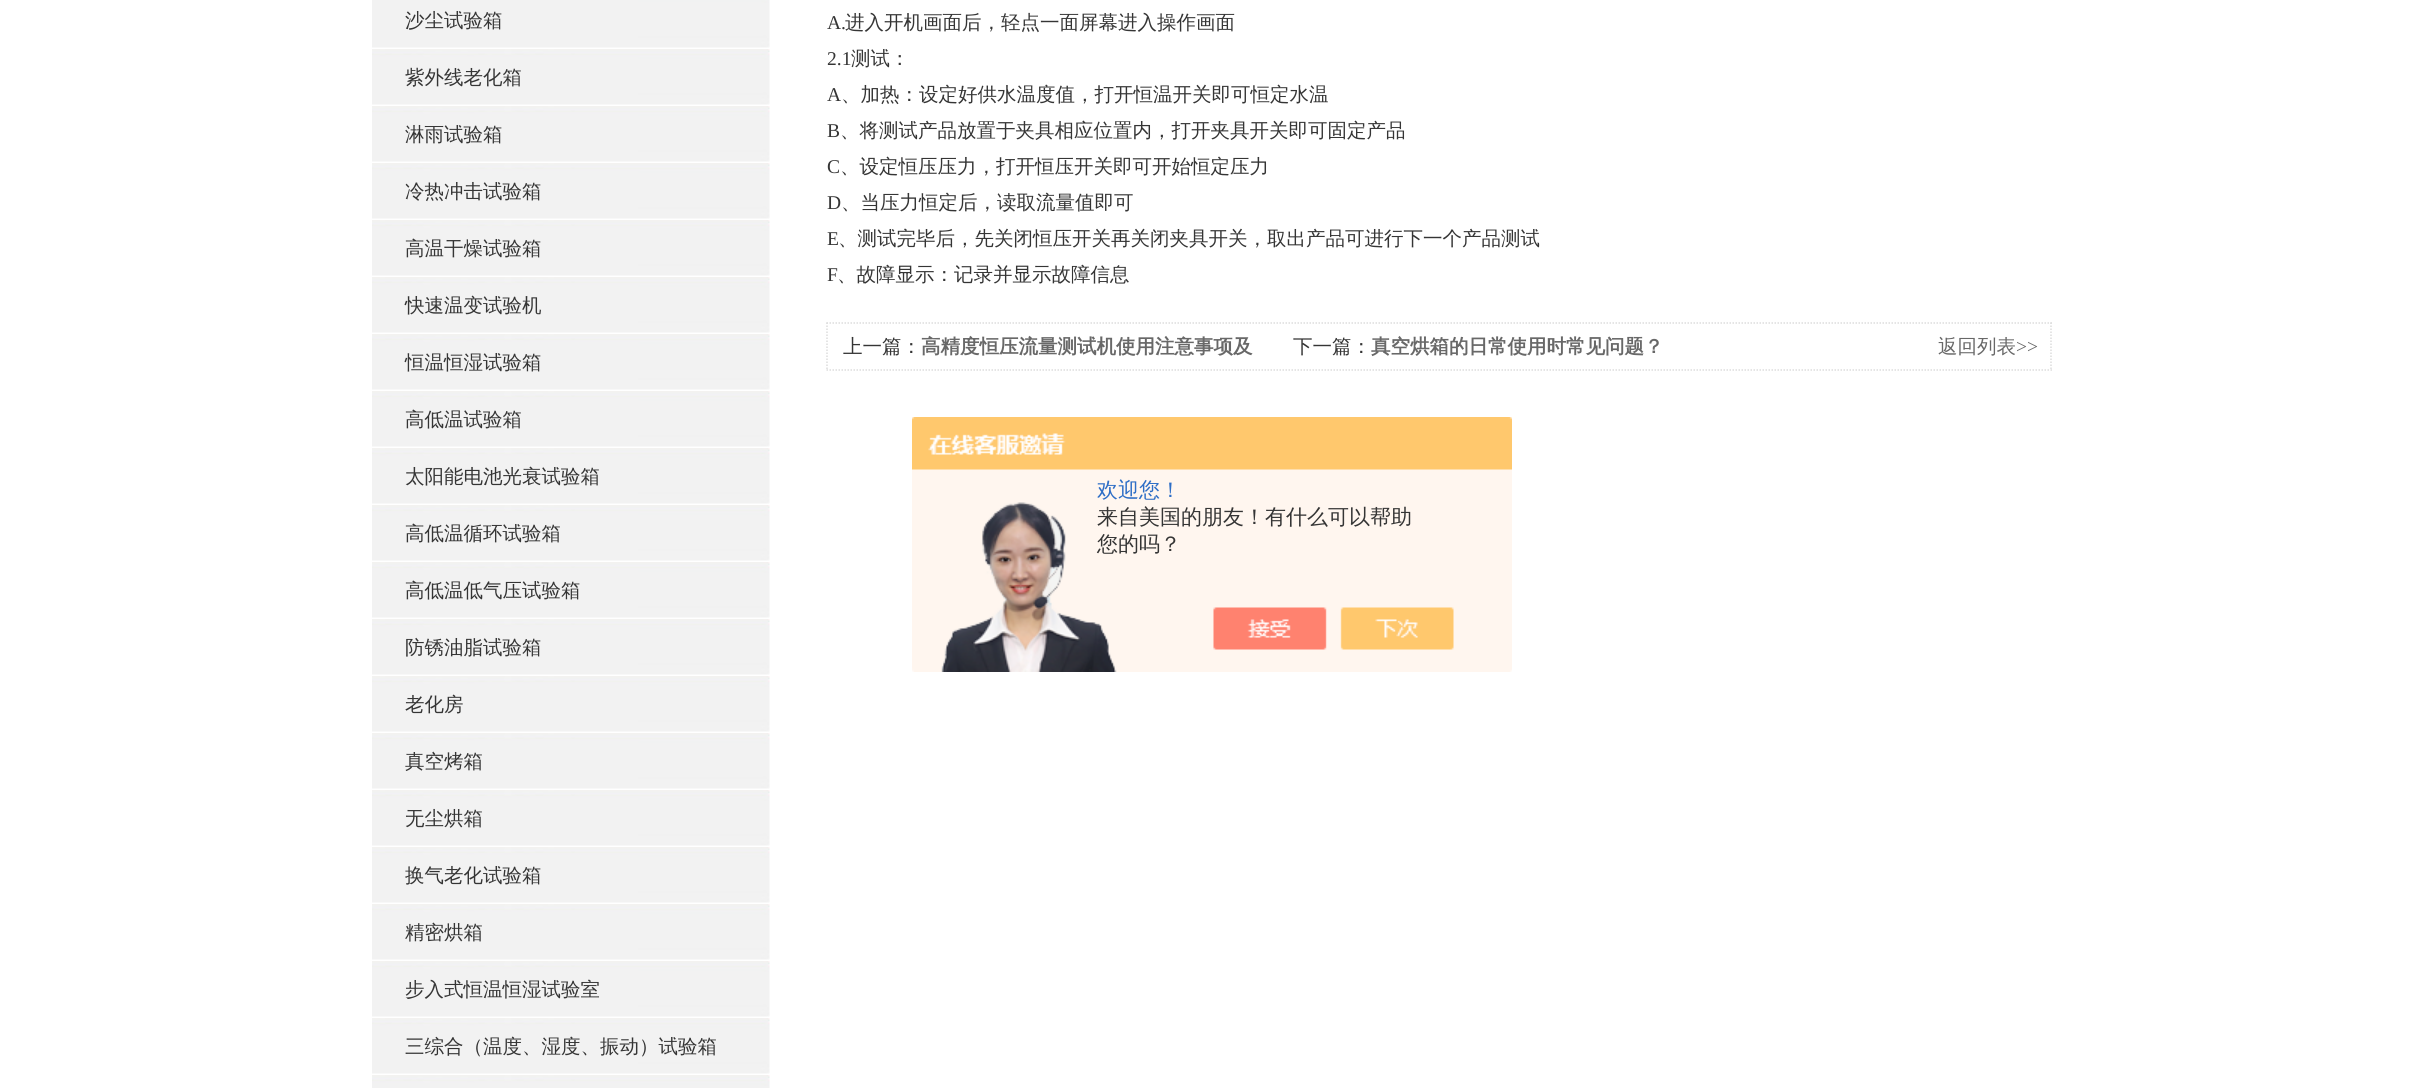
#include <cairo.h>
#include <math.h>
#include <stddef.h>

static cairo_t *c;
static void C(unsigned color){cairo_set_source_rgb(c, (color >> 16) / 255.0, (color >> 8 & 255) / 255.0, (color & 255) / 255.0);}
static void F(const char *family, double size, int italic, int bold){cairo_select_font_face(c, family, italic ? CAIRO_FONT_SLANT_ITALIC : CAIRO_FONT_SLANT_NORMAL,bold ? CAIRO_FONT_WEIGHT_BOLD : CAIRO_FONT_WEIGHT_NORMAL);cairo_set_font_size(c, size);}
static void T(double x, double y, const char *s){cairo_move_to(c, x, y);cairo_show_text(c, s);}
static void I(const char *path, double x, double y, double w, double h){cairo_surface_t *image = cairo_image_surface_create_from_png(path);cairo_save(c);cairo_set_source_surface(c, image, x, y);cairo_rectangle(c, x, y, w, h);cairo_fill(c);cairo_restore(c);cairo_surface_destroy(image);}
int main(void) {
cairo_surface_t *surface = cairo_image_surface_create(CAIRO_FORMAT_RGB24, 2424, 1088);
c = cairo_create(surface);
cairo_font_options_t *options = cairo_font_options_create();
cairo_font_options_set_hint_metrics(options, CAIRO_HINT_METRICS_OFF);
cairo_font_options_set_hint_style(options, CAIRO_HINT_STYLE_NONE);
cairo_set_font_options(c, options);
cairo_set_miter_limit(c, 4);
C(0xffffff);
cairo_paint(c);
I("1.png",372,0,398,48);
F("WenQuanYi Zen Hei Medium",19.5,0,0);
C(0x353535);
T(405,27,"沙尘试验箱");
I("2.png",372,49,398,56);
T(405,84,"紫外线老化箱");
I("2.png",372,106,398,56);
T(405,141,"淋雨试验箱");
I("2.png",372,163,398,56);
T(405,198,"冷热冲击试验箱");
I("2.png",372,220,398,56);
T(405,255,"高温干燥试验箱");
I("2.png",372,277,398,56);
T(405,312,"快速温变试验机");
I("2.png",372,334,398,56);
T(405,369,"恒温恒湿试验箱");
I("2.png",372,391,398,56);
T(405,426,"高低温试验箱");
I("2.png",372,448,398,56);
T(405,483,"太阳能电池光衰试验箱");
I("2.png",372,505,398,56);
T(405,540,"高低温循环试验箱");
I("2.png",372,562,398,56);
T(405,597,"高低温低气压试验箱");
I("2.png",372,619,398,56);
T(405,654,"防锈油脂试验箱");
I("2.png",372,676,398,56);
T(405,711,"老化房");
I("2.png",372,733,398,56);
T(405,768,"真空烤箱");
I("2.png",372,790,398,56);
T(405,825,"无尘烘箱");
I("2.png",372,847,398,56);
T(405,882,"换气老化试验箱");
I("2.png",372,904,398,56);
T(405,939,"精密烘箱");
I("2.png",372,961,398,56);
T(405,996,"步入式恒温恒湿试验室");
I("2.png",372,1018,398,56);
T(405,1053,"三综合（温度、湿度、振动）试验箱");
I("3.png",372,1075,398,13);
F("Liberation Serif",19.5,0,0);
T(827,29,"A.");
F("WenQuanYi Zen Hei Medium",19.5,0,0);
T(845,29,"进入开机画面后，轻点一面屏幕进入操作画面");
F("Liberation Serif",19.5,0,0);
T(827,65,"2.1");
F("WenQuanYi Zen Hei Medium",19.5,0,0);
T(851,65,"测试：");
F("Liberation Serif",19.5,0,0);
T(827,101,"A");
F("WenQuanYi Zen Hei Medium",19.5,0,0);
T(841,101,"、加热：设定好供水温度值，打开恒温开关即可恒定水温");
F("Liberation Serif",19.5,0,0);
T(827,137,"B");
F("WenQuanYi Zen Hei Medium",19.5,0,0);
T(840,137,"、将测试产品放置于夹具相应位置内，打开夹具开关即可固定产品");
F("Liberation Serif",19.5,0,0);
T(827,173,"C");
F("WenQuanYi Zen Hei Medium",19.5,0,0);
T(840,173,"、设定恒压压力，打开恒压开关即可开始恒定压力");
F("Liberation Serif",19.5,0,0);
T(827,209,"D");
F("WenQuanYi Zen Hei Medium",19.5,0,0);
T(841,209,"、当压力恒定后，读取流量值即可");
F("Liberation Serif",19.5,0,0);
T(827,245,"E");
F("WenQuanYi Zen Hei Medium",19.5,0,0);
T(838,245,"、测试完毕后，先关闭恒压开关再关闭夹具开关，取出产品可进行下一个产品测试");
F("Liberation Serif",19.5,0,0);
T(827,281,"F");
F("WenQuanYi Zen Hei Medium",19.5,0,0);
T(837,281,"、故障显示：记录并显示故障信息");
cairo_new_path(c);
cairo_move_to(c,826.5,323);
cairo_line_to(c,2052,323);
C(0xdddddd);
cairo_set_line_width(c,1.5);
cairo_set_dash(c,(double[]){1.5,1.5},2,0);
cairo_stroke(c);
cairo_new_path(c);
cairo_move_to(c,2051,322.5);
cairo_line_to(c,2051,370.5);
cairo_stroke(c);
cairo_new_path(c);
cairo_move_to(c,826.5,370);
cairo_line_to(c,2052,370);
cairo_stroke(c);
cairo_new_path(c);
cairo_move_to(c,827,322.5);
cairo_line_to(c,827,370.5);
cairo_stroke(c);
C(0x353535);
T(843,353,"上一篇：");
F("WenQuanYi Zen Hei",19.5,0,1);
C(0x686868);
T(921,353,"高精度恒压流量测试机使用注意事项及");
F("WenQuanYi Zen Hei Medium",19.5,0,0);
C(0x353535);
T(1293,353,"下一篇：");
F("WenQuanYi Zen Hei",19.5,0,1);
C(0x686868);
T(1371,353,"真空烘箱的日常使用时常见问题？");
F("WenQuanYi Zen Hei Medium",19.5,0,0);
T(1938,353,"返回列表");
F("Liberation Serif",19.5,0,0);
T(2016,353,">>");
I("4.png",912,417,600,255);
F("WenQuanYi Zen Hei Medium",21,0,0);
C(0x2e6ec6);
T(1097,497,"欢迎您！");
C(0x353535);
T(1097,524,"来自美国的朋友！有什么可以帮助");
T(1097,551,"您的吗？");
cairo_surface_write_to_png(surface, "o.png");
cairo_font_options_destroy(options);
cairo_destroy(c);
cairo_surface_destroy(surface);
return 0;
}
